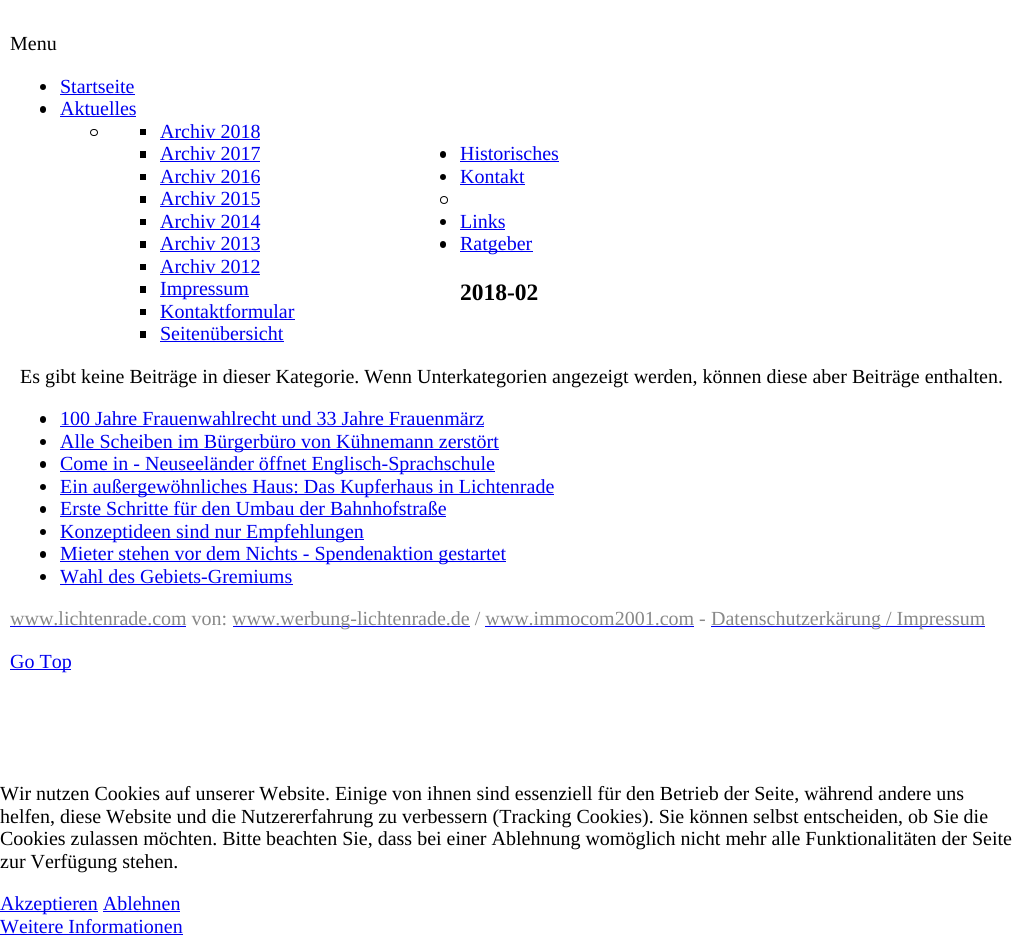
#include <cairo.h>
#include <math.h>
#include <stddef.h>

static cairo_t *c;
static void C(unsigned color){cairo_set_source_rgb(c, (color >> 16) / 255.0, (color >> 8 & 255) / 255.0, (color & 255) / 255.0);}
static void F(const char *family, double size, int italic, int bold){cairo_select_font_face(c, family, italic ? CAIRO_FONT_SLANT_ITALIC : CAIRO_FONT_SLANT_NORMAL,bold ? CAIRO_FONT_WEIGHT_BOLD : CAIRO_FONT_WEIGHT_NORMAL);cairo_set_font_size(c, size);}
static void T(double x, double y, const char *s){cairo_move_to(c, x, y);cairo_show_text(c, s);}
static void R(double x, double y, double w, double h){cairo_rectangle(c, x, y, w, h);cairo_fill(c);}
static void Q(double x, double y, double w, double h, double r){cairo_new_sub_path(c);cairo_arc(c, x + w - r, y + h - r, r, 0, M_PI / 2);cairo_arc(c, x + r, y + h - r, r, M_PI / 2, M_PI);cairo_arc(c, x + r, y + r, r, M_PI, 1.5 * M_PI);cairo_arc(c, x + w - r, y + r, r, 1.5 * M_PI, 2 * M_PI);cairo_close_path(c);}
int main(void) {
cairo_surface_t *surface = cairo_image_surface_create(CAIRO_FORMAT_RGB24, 1012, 937);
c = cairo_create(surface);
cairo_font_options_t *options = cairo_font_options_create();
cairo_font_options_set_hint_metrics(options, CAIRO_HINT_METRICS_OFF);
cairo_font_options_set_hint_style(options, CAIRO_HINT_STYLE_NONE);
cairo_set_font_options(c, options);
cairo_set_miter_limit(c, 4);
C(0xffffff);
cairo_paint(c);
F("Liberation Serif",20,0,0);
C(0x000000);
T(10,50,"Menu");
cairo_new_path(c);
cairo_arc(c,43,87,3,0,2 * M_PI);
cairo_fill(c);
C(0x0000ee);
T(60,93,"Startseite");
R(60,94,75,1);
C(0x000000);
Q(40,106,6,7,3);
cairo_fill(c);
C(0x0000ee);
T(60,115,"Aktuelles");
R(60,116,76,1);
Q(90.5,129.5,7,6,3);
C(0x000000);
cairo_set_line_width(c,1);
cairo_stroke(c);
R(140,129,6,6);
C(0x0000ee);
T(160,138,"Archiv 2018");
R(160,139,100,1);
C(0x000000);
R(140,151,6,7);
C(0x0000ee);
T(160,160,"Archiv 2017");
R(160,161,100,1);
C(0x000000);
R(140,174,6,6);
C(0x0000ee);
T(160,183,"Archiv 2016");
R(160,184,100,1);
C(0x000000);
R(140,196,6,7);
C(0x0000ee);
T(160,205,"Archiv 2015");
R(160,206,100,1);
C(0x000000);
R(140,219,6,6);
C(0x0000ee);
T(160,228,"Archiv 2014");
R(160,229,100,1);
C(0x000000);
R(140,241,6,7);
C(0x0000ee);
T(160,250,"Archiv 2013");
R(160,251,100,1);
C(0x000000);
R(140,264,6,6);
C(0x0000ee);
T(160,273,"Archiv 2012");
R(160,274,100,1);
C(0x000000);
Q(440,151,6,7,3);
cairo_fill(c);
C(0x0000ee);
T(460,160,"Historisches");
R(460,161,99,1);
C(0x000000);
cairo_new_path(c);
cairo_arc(c,443,177,3,0,2 * M_PI);
cairo_fill(c);
C(0x0000ee);
T(460,183,"Kontakt");
R(460,184,65,1);
cairo_new_path(c);
cairo_arc(c,444,200,3.5,0,2 * M_PI);
C(0x000000);
cairo_stroke(c);
R(140,286,6,7);
C(0x0000ee);
R(160,296,89,1);
T(160,295,"Impressum");
C(0x000000);
R(140,309,6,6);
C(0x0000ee);
T(160,318,"Kontaktformular");
R(160,319,135,1);
C(0x000000);
R(140,331,6,7);
C(0x0000ee);
T(160,340,"Seitenübersicht");
R(160,341,124,1);
C(0x000000);
cairo_new_path(c);
cairo_arc(c,443,222,3,0,2 * M_PI);
cairo_fill(c);
C(0x0000ee);
T(460,228,"Links");
R(460,229,45,1);
C(0x000000);
Q(440,241,6,7,3);
cairo_fill(c);
C(0x0000ee);
R(460,251,73,1);
T(460,250,"Ratgeber");
F("Liberation Serif",23.5,0,1);
C(0x000000);
T(460,300,"2018-02");
Q(40,416,6,7,3);
cairo_fill(c);
F("Liberation Serif",20,0,0);
C(0x0000ee);
T(60,425,"100 Jahre Frauenwahlrecht und 33 Jahre Frauenmärz");
R(60,426,424,1);
C(0x000000);
cairo_new_path(c);
cairo_arc(c,43,442,3,0,2 * M_PI);
cairo_fill(c);
C(0x0000ee);
R(60,449,439,1);
T(60,448,"Alle Scheiben im Bürgerbüro von Kühnemann zerstört");
C(0x000000);
Q(40,461,6,7,3);
cairo_fill(c);
C(0x0000ee);
R(60,471,435,1);
T(60,470,"Come in - Neuseeländer öffnet Englisch-Sprachschule");
C(0x000000);
cairo_new_path(c);
cairo_arc(c,43,487,3,0,2 * M_PI);
cairo_fill(c);
C(0x0000ee);
R(60,494,494,1);
T(60,493,"Ein außergewöhnliches Haus: Das Kupferhaus in Lichtenrade");
C(0x000000);
Q(40,506,6,7,3);
cairo_fill(c);
C(0x0000ee);
T(60,515,"Erste Schritte für den Umbau der Bahnhofstraße");
R(60,516,386,1);
C(0x000000);
cairo_new_path(c);
cairo_arc(c,43,532,3,0,2 * M_PI);
cairo_fill(c);
C(0x0000ee);
R(60,539,304,1);
T(60,538,"Konzeptideen sind nur Empfehlungen");
C(0x000000);
Q(40,551,6,7,3);
cairo_fill(c);
C(0x0000ee);
R(60,561,446,1);
T(60,560,"Mieter stehen vor dem Nichts - Spendenaktion gestartet");
C(0x000000);
cairo_new_path(c);
cairo_arc(c,43,577,3,0,2 * M_PI);
cairo_fill(c);
C(0x0000ee);
T(60,583,"Wahl des Gebiets-Gremiums");
R(60,584,233,1);
C(0x000000);
T(20,383,"Es gibt keine Beiträge in dieser Kategorie. Wenn Unterkategorien angezeigt werden, können diese aber Beiträge enthalten.");
C(0x888888);
T(10,625,"www.lichtenrade.com von:");
C(0x0000ee);
R(10,626,176,1);
R(233,626,237,1);
C(0x888888);
T(232,625,"www.werbung-lichtenrade.de / www.immocom2001.com -");
C(0x0000ee);
R(485,626,209,1);
R(711,626,274,1);
C(0x888888);
T(711,625,"Datenschutzerkärung / Impressum");
C(0x0000ee);
R(10,669,61,1);
T(10,668,"Go Top");
C(0x000000);
T(0,800,"Wir nutzen Cookies auf unserer Website. Einige von ihnen sind essenziell für den Betrieb der Seite, während andere uns");
T(0,823,"helfen, diese Website und die Nutzererfahrung zu verbessern (Tracking Cookies). Sie können selbst entscheiden, ob Sie die");
T(0,845,"Cookies zulassen möchten. Bitte beachten Sie, dass bei einer Ablehnung womöglich nicht mehr alle Funktionalitäten der Seite");
T(0,868,"zur Verfügung stehen.");
C(0x0000ee);
R(0,911,98,1);
T(0,910,"Akzeptieren Ablehnen");
R(103,911,77,1);
T(0,933,"Weitere Informationen");
R(0,934,183,1);
cairo_surface_write_to_png(surface, "o.png");
cairo_font_options_destroy(options);
cairo_destroy(c);
cairo_surface_destroy(surface);
return 0;
}
